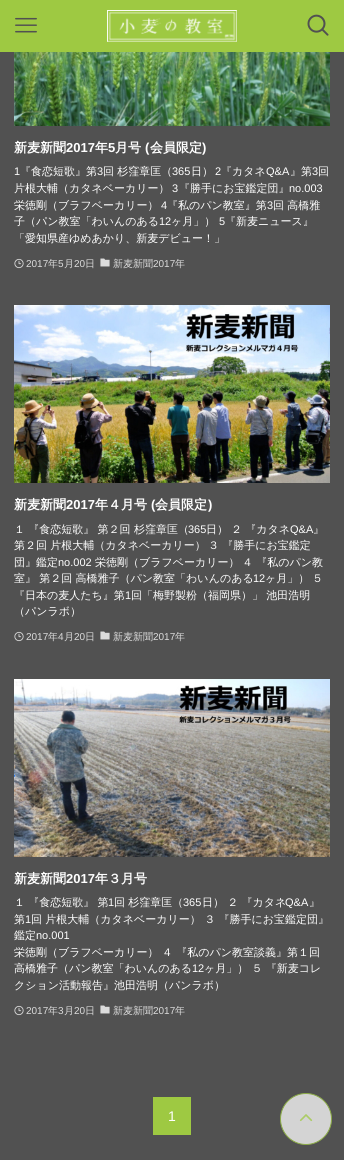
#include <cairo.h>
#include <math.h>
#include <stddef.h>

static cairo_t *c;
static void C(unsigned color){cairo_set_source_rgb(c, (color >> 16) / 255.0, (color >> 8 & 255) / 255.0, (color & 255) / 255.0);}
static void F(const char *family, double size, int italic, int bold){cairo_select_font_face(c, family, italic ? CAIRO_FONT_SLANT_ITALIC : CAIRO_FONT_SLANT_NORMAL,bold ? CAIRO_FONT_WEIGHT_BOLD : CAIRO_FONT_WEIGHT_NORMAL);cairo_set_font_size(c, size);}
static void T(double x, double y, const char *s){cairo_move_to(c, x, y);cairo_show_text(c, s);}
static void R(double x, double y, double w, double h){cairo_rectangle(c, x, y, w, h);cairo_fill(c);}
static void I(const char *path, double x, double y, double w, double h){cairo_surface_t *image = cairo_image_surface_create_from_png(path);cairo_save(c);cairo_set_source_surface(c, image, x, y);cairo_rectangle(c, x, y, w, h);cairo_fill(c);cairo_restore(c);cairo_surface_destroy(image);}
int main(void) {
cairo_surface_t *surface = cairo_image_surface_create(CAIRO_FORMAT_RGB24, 344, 1160);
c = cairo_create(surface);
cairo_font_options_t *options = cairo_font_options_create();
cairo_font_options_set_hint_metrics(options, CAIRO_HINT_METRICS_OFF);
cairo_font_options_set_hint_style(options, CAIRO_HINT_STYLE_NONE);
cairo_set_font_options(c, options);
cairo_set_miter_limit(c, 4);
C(0x515151);
cairo_paint(c);
C(0x9ec942);
R(0,0,344,52);
I("1.png",15,17,22,16);
I("2.png",107,10,130,32);
I("3.png",307,14,22,22);
I("4.png",14,52,316,74);
F("WenQuanYi Zen Hei",13,0,1);
C(0xffffff);
T(14,152,"新麦新聞");
F("Liberation Sans",13,0,1);
T(66,152,"2017");
F("WenQuanYi Zen Hei",13,0,1);
T(95,152,"年");
F("Liberation Sans",13,0,1);
T(108,152,"5");
F("WenQuanYi Zen Hei",13,0,1);
T(115,152,"月号");
F("Liberation Sans",13,0,1);
T(145,152,"(");
F("WenQuanYi Zen Hei",13,0,1);
T(150,152,"会員限定");
F("Liberation Sans",13,0,1);
T(202,152,")");
F("Liberation Sans",11,0,0);
T(14,175,"1");
F("WenQuanYi Zen Hei Medium",11,0,0);
T(20,175,"『食恋短歌』第");
F("Liberation Sans",11,0,0);
T(97,175,"3");
F("WenQuanYi Zen Hei Medium",11,0,0);
T(103,175,"回 杉窪章匡（");
F("Liberation Sans",11,0,0);
T(172,175,"365");
F("WenQuanYi Zen Hei Medium",11,0,0);
T(191,175,"日）");
F("Liberation Sans",11,0,0);
T(215,175,"2");
F("WenQuanYi Zen Hei Medium",11,0,0);
T(221,175,"『カタネ");
F("Liberation Sans",11,0,0);
T(266,175,"Q&A");
F("WenQuanYi Zen Hei Medium",11,0,0);
T(290,175,"』第");
F("Liberation Sans",11,0,0);
T(312,175,"3");
F("WenQuanYi Zen Hei Medium",11,0,0);
T(318,175,"回");
T(14,192,"片根大輔（カタネベーカリー）");
F("Liberation Sans",11,0,0);
T(172,192,"3");
F("WenQuanYi Zen Hei Medium",11,0,0);
T(179,192,"『勝手にお宝鑑定団』");
F("Liberation Sans",11,0,0);
T(289,192,"no.003");
F("WenQuanYi Zen Hei Medium",11,0,0);
T(14,209,"栄徳剛（ブラフベーカリー）");
F("Liberation Sans",11,0,0);
T(161,209,"4");
F("WenQuanYi Zen Hei Medium",11,0,0);
T(167,209,"『私のパン教室』第");
F("Liberation Sans",11,0,0);
T(267,209,"3");
F("WenQuanYi Zen Hei Medium",11,0,0);
T(273,209,"回 高橋雅");
T(14,225,"子（パン教室「わいんのある");
F("Liberation Sans",11,0,0);
T(159,225,"12");
F("WenQuanYi Zen Hei Medium",11,0,0);
T(171,225,"ヶ月」）");
F("Liberation Sans",11,0,0);
T(219,225,"5");
F("WenQuanYi Zen Hei Medium",11,0,0);
T(225,225,"『新麦ニュース』");
T(14,242,"「愛知県産ゆめあかり、新麦デビュー！」");
I("5.png",14,258,10,11);
F("Liberation Sans",10,0,0);
C(0xdcdcdc);
T(26,267,"2017");
F("WenQuanYi Zen Hei Medium",10,0,0);
T(48,267,"年");
F("Liberation Sans",10,0,0);
T(58,267,"5");
F("WenQuanYi Zen Hei Medium",10,0,0);
T(64,267,"月");
F("Liberation Sans",10,0,0);
T(74,267,"20");
F("WenQuanYi Zen Hei Medium",10,0,0);
T(85,267,"日");
I("6.png",100,258,10,9);
T(113,267,"新麦新聞");
F("Liberation Sans",10,0,0);
T(153,267,"2017");
F("WenQuanYi Zen Hei Medium",10,0,0);
T(175,267,"年");
I("7.png",14,305,316,178);
F("WenQuanYi Zen Hei",13,0,1);
C(0xffffff);
T(14,509,"新麦新聞");
F("Liberation Sans",13,0,1);
T(66,509,"2017");
F("WenQuanYi Zen Hei",13,0,1);
T(95,509,"年４月号");
F("Liberation Sans",13,0,1);
T(151,509,"(");
F("WenQuanYi Zen Hei",13,0,1);
T(155,509,"会員限定");
F("Liberation Sans",13,0,1);
T(208,509,")");
F("WenQuanYi Zen Hei Medium",11,0,0);
T(14,533,"１ 『食恋短歌』 第２回 杉窪章匡（");
F("Liberation Sans",11,0,0);
T(188,533,"365");
F("WenQuanYi Zen Hei Medium",11,0,0);
T(206,533,"日）");
T(231,533,"２ 『カタネ");
F("Liberation Sans",11,0,0);
T(290,533,"Q&A");
F("WenQuanYi Zen Hei Medium",11,0,0);
T(313,533,"』");
T(14,549,"第２回 片根大輔（カタネベーカリー）");
T(208,549,"３ 『勝手にお宝鑑定");
T(14,566,"団』鑑定");
F("Liberation Sans",11,0,0);
T(58,566,"no.002");
F("WenQuanYi Zen Hei Medium",11,0,0);
T(95,566,"栄徳剛（ブラフベーカリー）");
T(242,566,"４ 『私のパン教");
T(14,582,"室』 第２回 高橋雅子（パン教室「わいんのある");
F("Liberation Sans",11,0,0);
T(253,582,"12");
F("WenQuanYi Zen Hei Medium",11,0,0);
T(265,582,"ヶ月」）");
T(312,582,"５");
T(14,599,"『日本の麦人たち』第");
F("Liberation Sans",11,0,0);
T(125,599,"1");
F("WenQuanYi Zen Hei Medium",11,0,0);
T(131,599,"回「梅野製粉（福岡県）」 池田浩明");
T(14,615,"（パンラボ）");
I("5.png",14,631,10,11);
F("Liberation Sans",10,0,0);
C(0xdcdcdc);
T(26,640,"2017");
F("WenQuanYi Zen Hei Medium",10,0,0);
T(48,640,"年");
F("Liberation Sans",10,0,0);
T(58,640,"4");
F("WenQuanYi Zen Hei Medium",10,0,0);
T(64,640,"月");
F("Liberation Sans",10,0,0);
T(74,640,"20");
F("WenQuanYi Zen Hei Medium",10,0,0);
T(85,640,"日");
I("6.png",100,631,10,9);
T(113,640,"新麦新聞");
F("Liberation Sans",10,0,0);
T(153,640,"2017");
F("WenQuanYi Zen Hei Medium",10,0,0);
T(175,640,"年");
I("8.png",14,679,316,178);
F("WenQuanYi Zen Hei",13,0,1);
C(0xffffff);
T(14,883,"新麦新聞");
F("Liberation Sans",13,0,1);
T(66,883,"2017");
F("WenQuanYi Zen Hei",13,0,1);
T(95,883,"年３月号");
F("WenQuanYi Zen Hei Medium",11,0,0);
T(14,906,"１ 『食恋短歌』 第");
F("Liberation Sans",11,0,0);
T(108,906,"1");
F("WenQuanYi Zen Hei Medium",11,0,0);
T(114,906,"回 杉窪章匡（");
F("Liberation Sans",11,0,0);
T(183,906,"365");
F("WenQuanYi Zen Hei Medium",11,0,0);
T(202,906,"日） ２ 『カタネ");
F("Liberation Sans",11,0,0);
T(285,906,"Q&A");
F("WenQuanYi Zen Hei Medium",11,0,0);
T(309,906,"』");
T(14,923,"第");
F("Liberation Sans",11,0,0);
T(25,923,"1");
F("WenQuanYi Zen Hei Medium",11,0,0);
T(31,923,"回 片根大輔（カタネベーカリー） ３ 『勝手にお宝鑑定団』");
T(14,939,"鑑定");
F("Liberation Sans",11,0,0);
T(36,939,"no.001");
F("WenQuanYi Zen Hei Medium",11,0,0);
T(14,956,"栄徳剛（ブラフベーカリー） ４ 『私のパン教室談義』第１回");
T(14,972,"高橋雅子（パン教室「わいんのある");
F("Liberation Sans",11,0,0);
T(192,972,"12");
F("WenQuanYi Zen Hei Medium",11,0,0);
T(204,972,"ヶ月」） ５ 『新麦コレ");
T(14,989,"クション活動報告』池田浩明（パンラボ）");
I("5.png",14,1005,10,11);
F("Liberation Sans",10,0,0);
C(0xdcdcdc);
T(26,1014,"2017");
F("WenQuanYi Zen Hei Medium",10,0,0);
T(48,1014,"年");
F("Liberation Sans",10,0,0);
T(58,1014,"3");
F("WenQuanYi Zen Hei Medium",10,0,0);
T(64,1014,"月");
F("Liberation Sans",10,0,0);
T(74,1014,"20");
F("WenQuanYi Zen Hei Medium",10,0,0);
T(85,1014,"日");
I("6.png",100,1005,10,9);
T(113,1014,"新麦新聞");
F("Liberation Sans",10,0,0);
T(153,1014,"2017");
F("WenQuanYi Zen Hei Medium",10,0,0);
T(175,1014,"年");
C(0x9ec942);
R(153,1097,38,38);
F("Liberation Sans",14,0,0);
C(0xffffff);
T(168,1121,"1");
C(0xd4d4d4);
cairo_new_path(c);
cairo_arc(c,306,1119,25.5,0,2 * M_PI);
cairo_fill_preserve(c);
C(0x8bab46);
cairo_set_line_width(c,1);
cairo_stroke(c);
I("9.png",299,1114,14,8);
cairo_surface_write_to_png(surface, "o.png");
cairo_font_options_destroy(options);
cairo_destroy(c);
cairo_surface_destroy(surface);
return 0;
}
